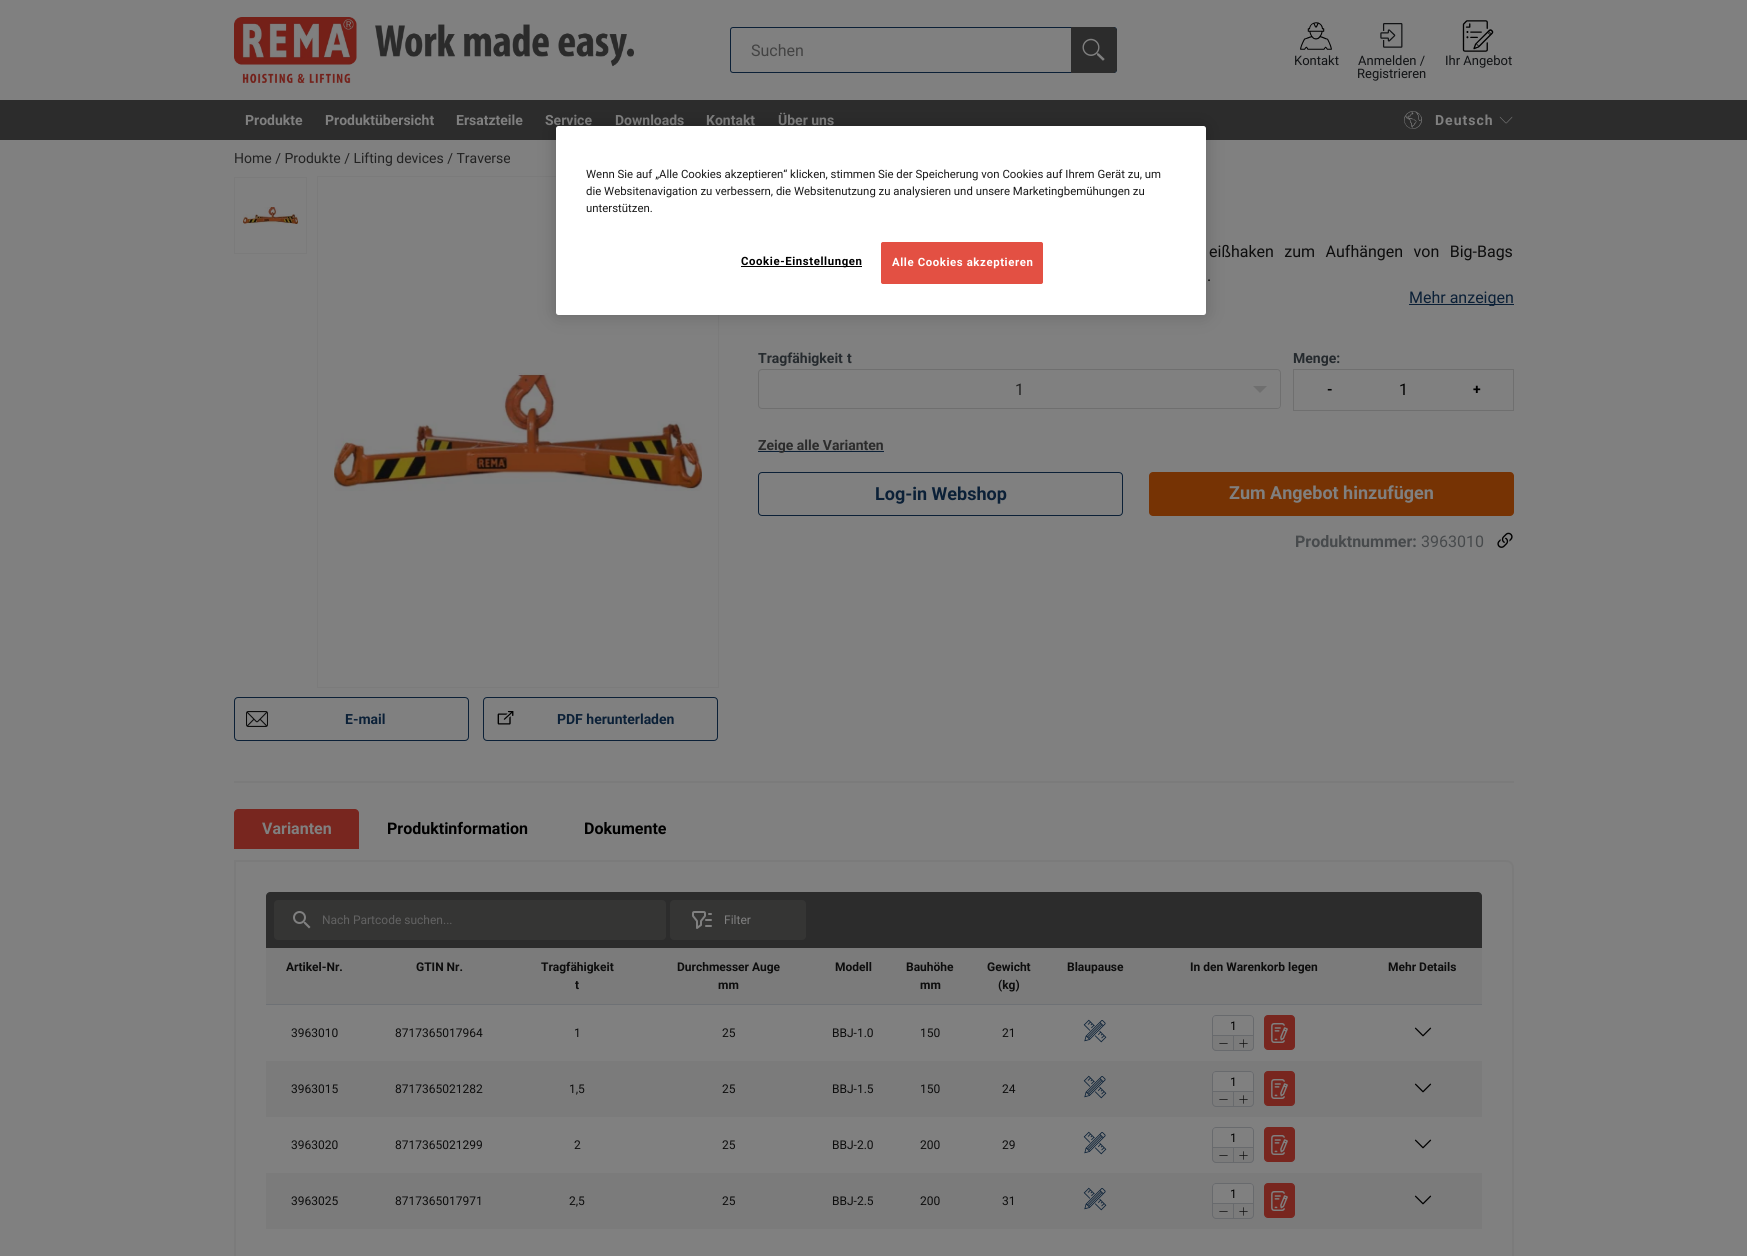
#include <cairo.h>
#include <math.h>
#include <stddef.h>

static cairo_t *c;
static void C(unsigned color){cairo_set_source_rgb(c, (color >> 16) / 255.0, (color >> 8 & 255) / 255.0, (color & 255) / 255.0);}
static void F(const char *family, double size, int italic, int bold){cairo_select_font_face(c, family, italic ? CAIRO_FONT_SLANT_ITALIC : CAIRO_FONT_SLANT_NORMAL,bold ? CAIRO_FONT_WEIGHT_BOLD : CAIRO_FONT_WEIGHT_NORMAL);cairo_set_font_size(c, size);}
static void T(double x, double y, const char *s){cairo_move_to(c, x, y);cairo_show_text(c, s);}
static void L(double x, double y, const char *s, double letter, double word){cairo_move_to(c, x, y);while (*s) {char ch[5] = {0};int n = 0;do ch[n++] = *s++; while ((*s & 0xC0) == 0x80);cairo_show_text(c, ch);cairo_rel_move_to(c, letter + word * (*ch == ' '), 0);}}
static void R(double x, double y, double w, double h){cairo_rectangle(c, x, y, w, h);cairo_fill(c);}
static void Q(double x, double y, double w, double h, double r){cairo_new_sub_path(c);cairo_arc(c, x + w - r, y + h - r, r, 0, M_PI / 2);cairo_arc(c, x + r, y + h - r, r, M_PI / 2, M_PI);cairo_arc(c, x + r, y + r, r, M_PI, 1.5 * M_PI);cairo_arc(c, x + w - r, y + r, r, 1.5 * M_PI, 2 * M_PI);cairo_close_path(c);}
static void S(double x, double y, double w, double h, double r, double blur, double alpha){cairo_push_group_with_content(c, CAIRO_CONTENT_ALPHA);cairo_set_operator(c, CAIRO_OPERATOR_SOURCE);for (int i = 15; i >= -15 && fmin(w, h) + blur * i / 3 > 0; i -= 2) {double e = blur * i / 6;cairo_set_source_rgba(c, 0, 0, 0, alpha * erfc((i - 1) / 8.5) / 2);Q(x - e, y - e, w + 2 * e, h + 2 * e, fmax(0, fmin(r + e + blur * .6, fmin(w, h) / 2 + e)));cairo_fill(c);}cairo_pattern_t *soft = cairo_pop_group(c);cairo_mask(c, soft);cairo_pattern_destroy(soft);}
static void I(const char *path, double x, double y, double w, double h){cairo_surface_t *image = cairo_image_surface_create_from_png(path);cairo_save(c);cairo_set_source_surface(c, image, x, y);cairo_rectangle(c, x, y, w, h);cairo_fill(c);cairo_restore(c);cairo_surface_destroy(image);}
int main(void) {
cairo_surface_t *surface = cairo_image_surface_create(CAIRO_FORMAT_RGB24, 1747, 1256);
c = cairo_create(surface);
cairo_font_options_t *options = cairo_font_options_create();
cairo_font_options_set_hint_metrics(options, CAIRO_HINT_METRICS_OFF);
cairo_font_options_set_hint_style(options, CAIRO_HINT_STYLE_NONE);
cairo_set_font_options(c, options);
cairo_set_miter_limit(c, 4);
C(0x808080);
cairo_paint(c);
I("1.png",234,17,400,66);
Q(730.5,27.5,386,45,2.5);
C(0x0b2037);
cairo_set_line_width(c,1);
cairo_stroke(c);
F("Roboto",16,0,0);
C(0x434343);
T(751,56,"Suchen");
C(0x2c2c2c);
cairo_new_path(c);
cairo_move_to(c,1071,27);
cairo_line_to(c,1113,27);
cairo_curve_to(c,1115,27,1117,29,1117,31);
cairo_line_to(c,1117,69);
cairo_curve_to(c,1117,71,1115,73,1113,73);
cairo_line_to(c,1071,73);
cairo_close_path(c);
cairo_fill(c);
I("2.png",1082,38,23,23);
I("3.png",1300,22,32,28);
F("Roboto",13,0,0);
C(0x111315);
T(1294,65,"Kontakt");
I("4.png",1380,23,23,25);
T(1358,65,"Anmelden /");
T(1357,78,"Registrieren");
I("5.png",1462,20,32,32);
T(1445,65,"Ihr Angebot");
C(0x2c2c2c);
R(0,100,1747,40);
F("Roboto",14,0,1);
C(0x808080);
T(245,125,"Produkte");
T(325,125,"Produktübersicht");
T(456,125,"Ersatzteile");
T(545,125,"Service");
T(615,125,"Downloads");
T(706,125,"Kontakt");
T(778,125,"Über uns");
I("6.png",1404,111,18,18);
L(1435,125,"Deutsch",1,0);
I("7.png",1499,116,14,8);
F("Roboto",14,0,0);
C(0x222222);
T(234,163,"Home / Produkte / Lifting devices / Traverse");
F("Roboto",16,0,0);
C(0x0d0d0d);
L(1209,257,"eißhaken zum Aufhängen von Big-Bags",0,6.5);
T(1207,281,".");
C(0x0b2037);
R(1409,304,105,1);
cairo_save(c);
cairo_rectangle(c,758,240,756,66);
cairo_clip(c);
T(1409,303,"Mehr anzeigen");
cairo_restore(c);
F("Roboto",14,0,1);
C(0x252a2e);
T(758,363,"Tragfähigkeit");
T(847,363,"t");
Q(758.5,369.5,522,39,3.5);
C(0x6f6f6f);
cairo_stroke(c);
F("Roboto",16,0,0);
C(0x222222);
T(1015,395,"1");
cairo_save(c);
Q(759,370,521,38,3);
cairo_clip(c);
C(0x808080);
Q(1240,370,40,40,4);
cairo_fill(c);
cairo_restore(c);
C(0x6f6f6f);
cairo_new_path(c);
cairo_move_to(c,1253,386);
cairo_line_to(c,1267,386);
cairo_line_to(c,1260,393);
cairo_close_path(c);
cairo_fill(c);
F("Roboto",14,0,1);
C(0x252a2e);
T(1293,363,"Menge:");
cairo_rectangle(c,1293.5,369.5,220,41);
C(0x6f6f6f);
cairo_stroke(c);
C(0x000000);
T(1327,394,"-");
F("Roboto",16,0,0);
T(1399,395,"1");
F("Roboto",14,0,1);
T(1473,394,"+");
C(0x0b2037);
R(758,451,126,1);
C(0x2c2c2c);
T(758,450,"Zeige alle Varianten");
Q(758.5,472.5,364,43,3.5);
C(0x0b2037);
cairo_stroke(c);
F("Roboto",18,0,1);
T(875,500,"Log-in Webshop");
C(0x763304);
Q(1149,472,365,44,4);
cairo_fill(c);
C(0x808080);
T(1229,499,"Zum Angebot hinzufügen");
F("Roboto",16,0,1);
C(0x474a4c);
T(1295,547,"Produktnummer:");
F("Roboto",16,0,0);
T(1421,547,"3963010");
I("8.png",1497,532,16,16);
cairo_rectangle(c,234.5,177.5,72,76);
C(0x7b7b7b);
cairo_stroke(c);
I("9.png",243,207,55,17);
cairo_rectangle(c,317.5,176.5,401,511);
cairo_stroke(c);
I("10.png",334,373,368,118);
Q(234.5,697.5,234,43,3.5);
C(0x0b2037);
cairo_stroke(c);
I("11.png",246,711,22,16);
F("Roboto",14,0,1);
T(345,724,"E-mail");
Q(483.5,697.5,234,43,3.5);
cairo_stroke(c);
I("12.png",497,711,17,14);
T(557,724,"PDF herunterladen");
C(0x7b7b7b);
R(234,781,1280,2);
C(0x78261f);
cairo_new_path(c);
cairo_move_to(c,238,809);
cairo_line_to(c,355,809);
cairo_curve_to(c,357,809,359,811,359,813);
cairo_line_to(c,359,849);
cairo_line_to(c,234,849);
cairo_line_to(c,234,813);
cairo_curve_to(c,234,811,236,809,238,809);
cairo_close_path(c);
cairo_fill(c);
F("Roboto",16,0,1);
C(0x808080);
T(262,834,"Varianten");
C(0x000000);
T(387,834,"Produktinformation");
T(584,834,"Dokumente");
cairo_new_path(c);
cairo_move_to(c,235,861);
cairo_line_to(c,1506,861);
cairo_curve_to(c,1510,861,1513,864,1513,868);
cairo_line_to(c,1513,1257);
cairo_curve_to(c,1513,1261,1510,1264,1506,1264);
cairo_line_to(c,242,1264);
cairo_curve_to(c,238,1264,235,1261,235,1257);
cairo_close_path(c);
C(0x7b7b7b);
cairo_set_line_width(c,2);
cairo_stroke(c);
C(0x2c2c2c);
cairo_new_path(c);
cairo_move_to(c,270,892);
cairo_line_to(c,1478,892);
cairo_curve_to(c,1480,892,1482,894,1482,896);
cairo_line_to(c,1482,948);
cairo_line_to(c,266,948);
cairo_line_to(c,266,896);
cairo_curve_to(c,266,894,268,892,270,892);
cairo_close_path(c);
cairo_fill(c);
C(0x353534);
Q(274,900,392,40,4);
cairo_fill(c);
I("13.png",293,911,18,18);
F("Roboto",12,0,0);
C(0x626262);
T(322,924,"Nach Partcode suchen...");
C(0x353534);
Q(670,900,136,40,4);
cairo_fill(c);
I("14.png",692,911,20,18);
C(0x808080);
T(724,924,"Filter");
C(0x7b7b7b);
R(266,948,1216,56);
C(0x6e7175);
R(266,1004,1216,1);
F("Roboto",12,0,1);
C(0x0d0d0d);
T(286,971,"Artikel-Nr.");
T(416,971,"GTIN Nr.");
T(541,971,"Tragfähigkeit");
T(575,989,"t");
T(677,971,"Durchmesser Auge");
T(718,989,"mm");
T(835,971,"Modell");
T(906,971,"Bauhöhe");
T(920,989,"mm");
T(987,971,"Gewicht");
T(998,989,"(kg)");
T(1067,971,"Blaupause");
T(1190,971,"In den Warenkorb legen");
T(1388,971,"Mehr Details");
I("15.png",1083,1019,24,24);
C(0x686a6d);
cairo_set_fill_rule(c,CAIRO_FILL_RULE_EVEN_ODD);
cairo_new_path(c);
cairo_move_to(c,1216,1015);
cairo_line_to(c,1250,1015);
cairo_curve_to(c,1252,1015,1254,1017,1254,1019);
cairo_line_to(c,1254,1035);
cairo_line_to(c,1212,1035);
cairo_line_to(c,1212,1019);
cairo_curve_to(c,1212,1017,1214,1015,1216,1015);
cairo_close_path(c);
cairo_move_to(c,1216,1016);
cairo_line_to(c,1250,1016);
cairo_curve_to(c,1252,1016,1253,1017,1253,1019);
cairo_line_to(c,1253,1035);
cairo_line_to(c,1213,1035);
cairo_line_to(c,1213,1019);
cairo_curve_to(c,1213,1017,1214,1016,1216,1016);
cairo_close_path(c);
cairo_fill(c);
F("Roboto",12,0,0);
C(0x000000);
T(1230,1030,"1");
C(0x7b7b7b);
cairo_new_path(c);
cairo_move_to(c,1212,1035);
cairo_line_to(c,1233,1035);
cairo_line_to(c,1233,1051);
cairo_line_to(c,1216,1051);
cairo_curve_to(c,1214,1051,1212,1049,1212,1047);
cairo_close_path(c);
cairo_fill(c);
C(0x686a6d);
cairo_new_path(c);
cairo_move_to(c,1212,1035);
cairo_line_to(c,1233,1035);
cairo_line_to(c,1233,1051);
cairo_line_to(c,1216,1051);
cairo_curve_to(c,1214,1051,1212,1049,1212,1047);
cairo_close_path(c);
cairo_move_to(c,1213,1036);
cairo_line_to(c,1233,1036);
cairo_line_to(c,1233,1050);
cairo_line_to(c,1216,1050);
cairo_curve_to(c,1214.5,1050,1213,1048.5,1213,1047);
cairo_close_path(c);
cairo_fill(c);
I("16.png",1219,1043,9,1);
C(0x7b7b7b);
cairo_new_path(c);
cairo_move_to(c,1233.5,1035.5);
cairo_line_to(c,1253.5,1035.5);
cairo_line_to(c,1253.5,1047);
cairo_curve_to(c,1253.5,1049,1252,1050.5,1250,1050.5);
cairo_line_to(c,1233.5,1050.5);
cairo_close_path(c);
cairo_fill_preserve(c);
C(0x686a6d);
cairo_set_line_width(c,1);
cairo_stroke(c);
I("17.png",1239,1039,9,9);
C(0x78261f);
Q(1264.5,1015.5,30,34,3.5);
cairo_fill_preserve(c);
cairo_stroke(c);
I("18.png",1271,1023,17,20);
C(0x0d0d0d);
T(291,1037,"3963010");
T(395,1037,"8717365017964");
T(574,1037,"1");
T(722,1037,"25");
T(832,1037,"BBJ-1.0");
T(920,1037,"150");
T(1002,1037,"21");
I("19.png",1414,1027,18,10);
C(0x7b7b7b);
R(266,1061,1216,56);
I("20.png",1083,1075,24,24);
C(0x808080);
cairo_new_path(c);
cairo_move_to(c,1216,1071);
cairo_line_to(c,1250,1071);
cairo_curve_to(c,1252,1071,1254,1073,1254,1075);
cairo_line_to(c,1254,1091);
cairo_line_to(c,1212,1091);
cairo_line_to(c,1212,1075);
cairo_curve_to(c,1212,1073,1214,1071,1216,1071);
cairo_close_path(c);
cairo_fill(c);
C(0x686a6d);
cairo_new_path(c);
cairo_move_to(c,1216,1071);
cairo_line_to(c,1250,1071);
cairo_curve_to(c,1252,1071,1254,1073,1254,1075);
cairo_line_to(c,1254,1091);
cairo_line_to(c,1212,1091);
cairo_line_to(c,1212,1075);
cairo_curve_to(c,1212,1073,1214,1071,1216,1071);
cairo_close_path(c);
cairo_move_to(c,1216,1072);
cairo_line_to(c,1250,1072);
cairo_curve_to(c,1252,1072,1253,1073,1253,1075);
cairo_line_to(c,1253,1091);
cairo_line_to(c,1213,1091);
cairo_line_to(c,1213,1075);
cairo_curve_to(c,1213,1073,1214,1072,1216,1072);
cairo_close_path(c);
cairo_fill(c);
C(0x000000);
T(1230,1086,"1");
C(0x686a6d);
cairo_new_path(c);
cairo_move_to(c,1212,1091);
cairo_line_to(c,1233,1091);
cairo_line_to(c,1233,1107);
cairo_line_to(c,1216,1107);
cairo_curve_to(c,1214,1107,1212,1105,1212,1103);
cairo_close_path(c);
cairo_move_to(c,1213,1092);
cairo_line_to(c,1233,1092);
cairo_line_to(c,1233,1106);
cairo_line_to(c,1216,1106);
cairo_curve_to(c,1214.5,1106,1213,1104.5,1213,1103);
cairo_close_path(c);
cairo_fill(c);
I("16.png",1219,1099,9,1);
cairo_new_path(c);
cairo_move_to(c,1233.5,1091.5);
cairo_line_to(c,1253.5,1091.5);
cairo_line_to(c,1253.5,1103);
cairo_curve_to(c,1253.5,1105,1252,1106.5,1250,1106.5);
cairo_line_to(c,1233.5,1106.5);
cairo_close_path(c);
cairo_stroke(c);
I("17.png",1239,1095,9,9);
C(0x78261f);
Q(1264.5,1071.5,30,34,3.5);
cairo_fill_preserve(c);
cairo_stroke(c);
I("18.png",1271,1079,17,20);
C(0x0d0d0d);
T(291,1093,"3963015");
T(395,1093,"8717365021282");
T(569,1093,"1,5");
T(722,1093,"25");
T(832,1093,"BBJ-1.5");
T(920,1093,"150");
T(1002,1093,"24");
I("21.png",1414,1083,18,10);
I("15.png",1083,1131,24,24);
C(0x686a6d);
cairo_new_path(c);
cairo_move_to(c,1216,1127);
cairo_line_to(c,1250,1127);
cairo_curve_to(c,1252,1127,1254,1129,1254,1131);
cairo_line_to(c,1254,1147);
cairo_line_to(c,1212,1147);
cairo_line_to(c,1212,1131);
cairo_curve_to(c,1212,1129,1214,1127,1216,1127);
cairo_close_path(c);
cairo_move_to(c,1216,1128);
cairo_line_to(c,1250,1128);
cairo_curve_to(c,1252,1128,1253,1129,1253,1131);
cairo_line_to(c,1253,1147);
cairo_line_to(c,1213,1147);
cairo_line_to(c,1213,1131);
cairo_curve_to(c,1213,1129,1214,1128,1216,1128);
cairo_close_path(c);
cairo_fill(c);
C(0x000000);
T(1230,1142,"1");
C(0x7b7b7b);
cairo_new_path(c);
cairo_move_to(c,1212,1147);
cairo_line_to(c,1233,1147);
cairo_line_to(c,1233,1163);
cairo_line_to(c,1216,1163);
cairo_curve_to(c,1214,1163,1212,1161,1212,1159);
cairo_close_path(c);
cairo_fill(c);
C(0x686a6d);
cairo_new_path(c);
cairo_move_to(c,1212,1147);
cairo_line_to(c,1233,1147);
cairo_line_to(c,1233,1163);
cairo_line_to(c,1216,1163);
cairo_curve_to(c,1214,1163,1212,1161,1212,1159);
cairo_close_path(c);
cairo_move_to(c,1213,1148);
cairo_line_to(c,1233,1148);
cairo_line_to(c,1233,1162);
cairo_line_to(c,1216,1162);
cairo_curve_to(c,1214.5,1162,1213,1160.5,1213,1159);
cairo_close_path(c);
cairo_fill(c);
I("16.png",1219,1155,9,1);
C(0x7b7b7b);
cairo_new_path(c);
cairo_move_to(c,1233.5,1147.5);
cairo_line_to(c,1253.5,1147.5);
cairo_line_to(c,1253.5,1159);
cairo_curve_to(c,1253.5,1161,1252,1162.5,1250,1162.5);
cairo_line_to(c,1233.5,1162.5);
cairo_close_path(c);
cairo_fill_preserve(c);
C(0x686a6d);
cairo_stroke(c);
I("17.png",1239,1151,9,9);
C(0x78261f);
Q(1264.5,1127.5,30,34,3.5);
cairo_fill_preserve(c);
cairo_stroke(c);
I("18.png",1271,1135,17,20);
C(0x0d0d0d);
T(291,1149,"3963020");
T(395,1149,"8717365021299");
T(574,1149,"2");
T(722,1149,"25");
T(832,1149,"BBJ-2.0");
T(920,1149,"200");
T(1002,1149,"29");
I("19.png",1414,1139,18,10);
C(0x7b7b7b);
R(266,1173,1216,56);
I("20.png",1083,1187,24,24);
C(0x808080);
cairo_new_path(c);
cairo_move_to(c,1216,1183);
cairo_line_to(c,1250,1183);
cairo_curve_to(c,1252,1183,1254,1185,1254,1187);
cairo_line_to(c,1254,1203);
cairo_line_to(c,1212,1203);
cairo_line_to(c,1212,1187);
cairo_curve_to(c,1212,1185,1214,1183,1216,1183);
cairo_close_path(c);
cairo_fill(c);
C(0x686a6d);
cairo_new_path(c);
cairo_move_to(c,1216,1183);
cairo_line_to(c,1250,1183);
cairo_curve_to(c,1252,1183,1254,1185,1254,1187);
cairo_line_to(c,1254,1203);
cairo_line_to(c,1212,1203);
cairo_line_to(c,1212,1187);
cairo_curve_to(c,1212,1185,1214,1183,1216,1183);
cairo_close_path(c);
cairo_move_to(c,1216,1184);
cairo_line_to(c,1250,1184);
cairo_curve_to(c,1252,1184,1253,1185,1253,1187);
cairo_line_to(c,1253,1203);
cairo_line_to(c,1213,1203);
cairo_line_to(c,1213,1187);
cairo_curve_to(c,1213,1185,1214,1184,1216,1184);
cairo_close_path(c);
cairo_fill(c);
C(0x000000);
T(1230,1198,"1");
C(0x686a6d);
cairo_new_path(c);
cairo_move_to(c,1212,1203);
cairo_line_to(c,1233,1203);
cairo_line_to(c,1233,1219);
cairo_line_to(c,1216,1219);
cairo_curve_to(c,1214,1219,1212,1217,1212,1215);
cairo_close_path(c);
cairo_move_to(c,1213,1204);
cairo_line_to(c,1233,1204);
cairo_line_to(c,1233,1218);
cairo_line_to(c,1216,1218);
cairo_curve_to(c,1214.5,1218,1213,1216.5,1213,1215);
cairo_close_path(c);
cairo_fill(c);
I("16.png",1219,1211,9,1);
cairo_new_path(c);
cairo_move_to(c,1233.5,1203.5);
cairo_line_to(c,1253.5,1203.5);
cairo_line_to(c,1253.5,1215);
cairo_curve_to(c,1253.5,1217,1252,1218.5,1250,1218.5);
cairo_line_to(c,1233.5,1218.5);
cairo_close_path(c);
cairo_stroke(c);
I("17.png",1239,1207,9,9);
C(0x78261f);
Q(1264.5,1183.5,30,34,3.5);
cairo_fill_preserve(c);
cairo_stroke(c);
I("18.png",1271,1191,17,20);
C(0x0d0d0d);
T(291,1205,"3963025");
T(395,1205,"8717365017971");
T(569,1205,"2,5");
T(722,1205,"25");
T(832,1205,"BBJ-2.5");
T(920,1205,"200");
T(1002,1205,"31");
I("21.png",1414,1195,18,10);
C(0x000000);
S(556,126,650,189,2.5,9,.2);
C(0xffffff);
Q(556,126,650,189,2.5);
cairo_fill(c);
F("Roboto",11.38,0,0);
C(0x1a1a1a);
T(586,178,"Wenn Sie auf „Alle Cookies akzeptieren“ klicken, stimmen Sie der Speicherung von Cookies auf Ihrem Gerät zu, um");
T(586,195,"die Websitenavigation zu verbessern, die Websitenutzung zu analysieren und unsere Marketingbemühungen zu");
T(586,212,"unterstützen.");
C(0x000000);
R(741,266,121,1);
F("Roboto",11.38,0,1);
L(741,265,"Cookie-Einstellungen",.6,0);
C(0xe35043);
Q(881.5,242.5,161,41,1.5);
cairo_fill_preserve(c);
cairo_stroke(c);
C(0xffffff);
L(892,266,"Alle Cookies akzeptieren",.6,0);
cairo_surface_write_to_png(surface, "o.png");
cairo_font_options_destroy(options);
cairo_destroy(c);
cairo_surface_destroy(surface);
return 0;
}
